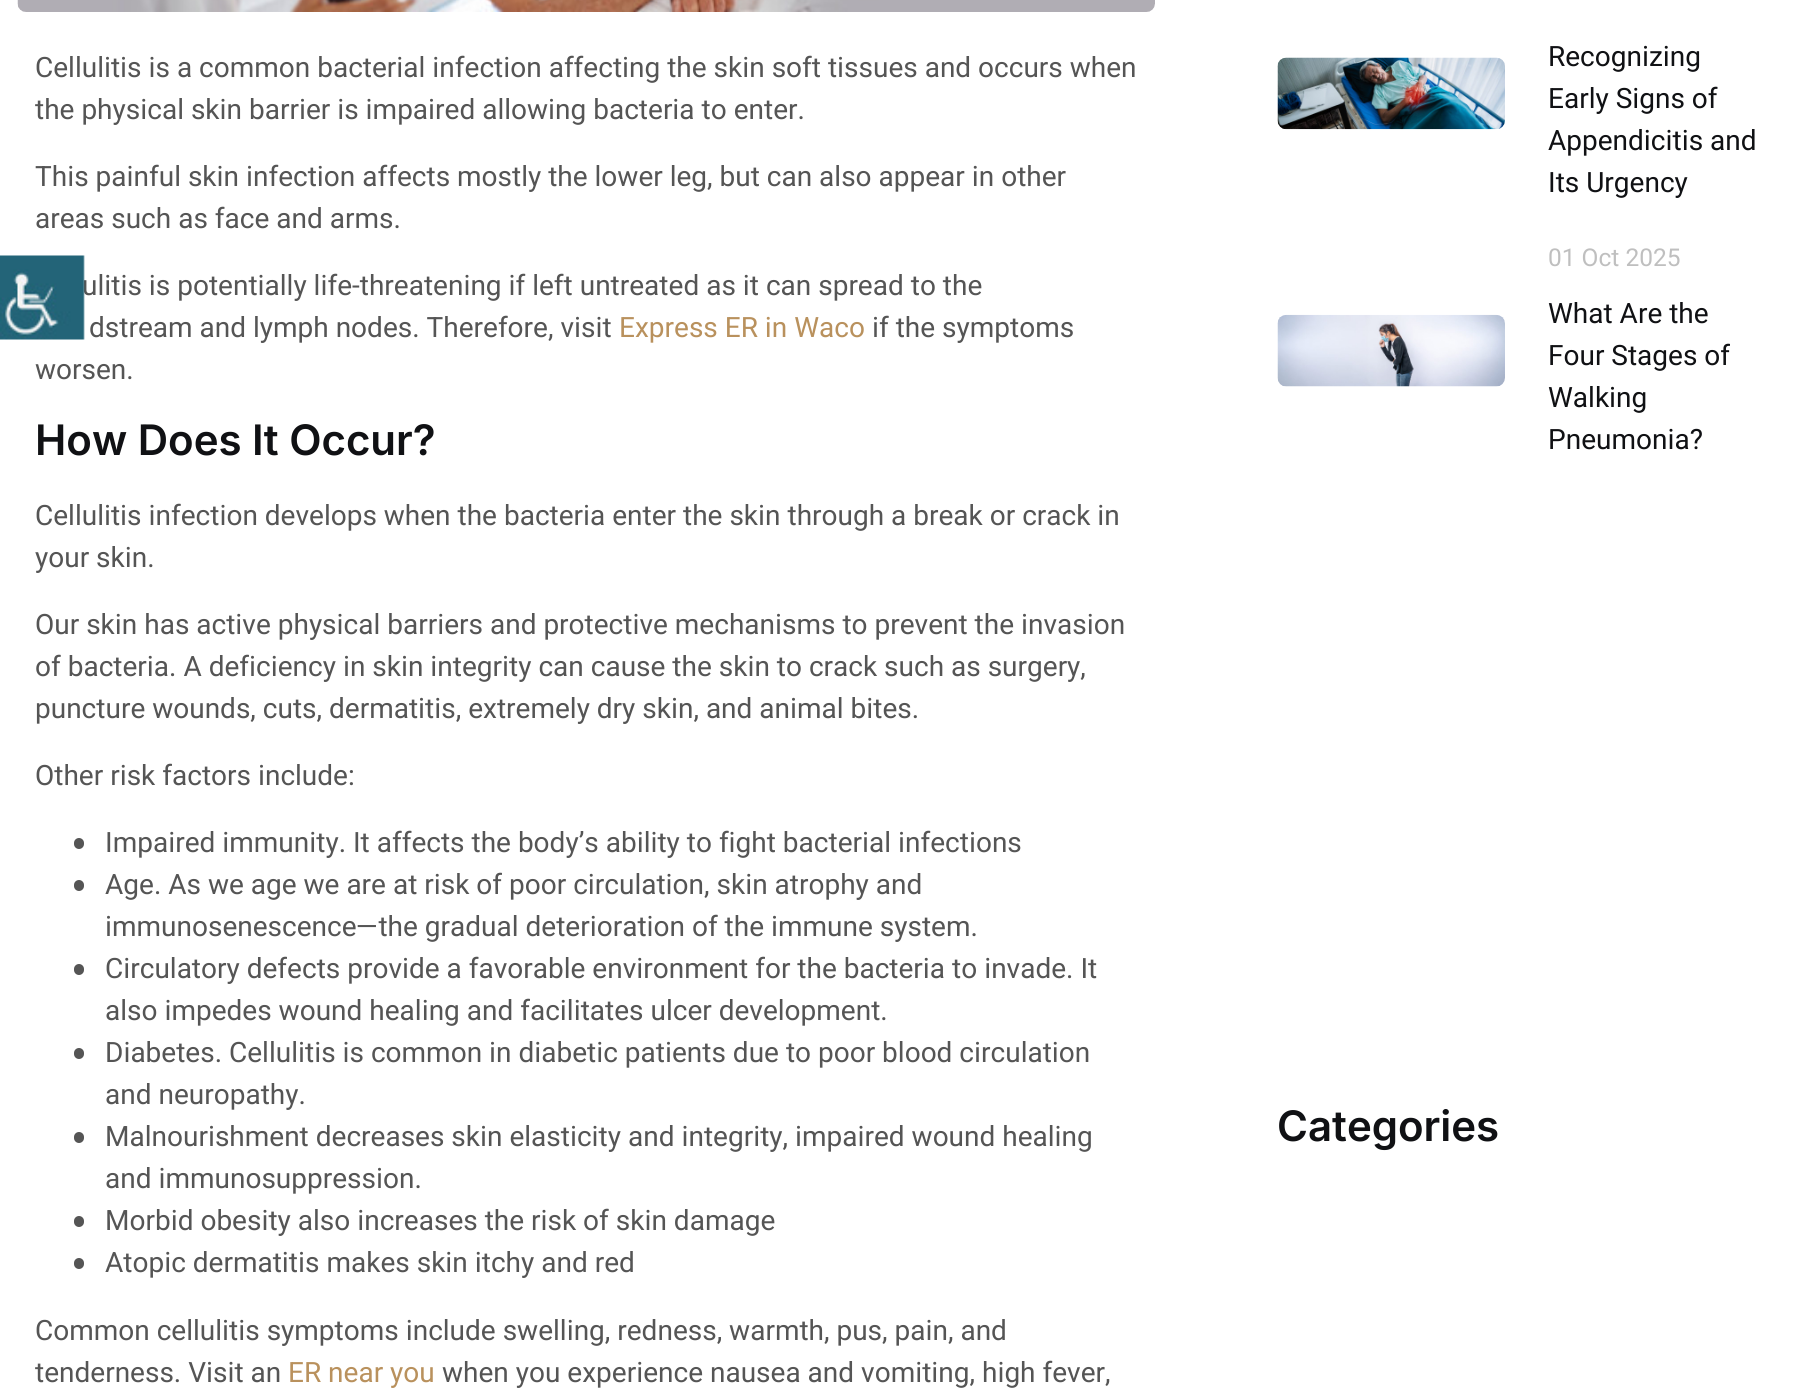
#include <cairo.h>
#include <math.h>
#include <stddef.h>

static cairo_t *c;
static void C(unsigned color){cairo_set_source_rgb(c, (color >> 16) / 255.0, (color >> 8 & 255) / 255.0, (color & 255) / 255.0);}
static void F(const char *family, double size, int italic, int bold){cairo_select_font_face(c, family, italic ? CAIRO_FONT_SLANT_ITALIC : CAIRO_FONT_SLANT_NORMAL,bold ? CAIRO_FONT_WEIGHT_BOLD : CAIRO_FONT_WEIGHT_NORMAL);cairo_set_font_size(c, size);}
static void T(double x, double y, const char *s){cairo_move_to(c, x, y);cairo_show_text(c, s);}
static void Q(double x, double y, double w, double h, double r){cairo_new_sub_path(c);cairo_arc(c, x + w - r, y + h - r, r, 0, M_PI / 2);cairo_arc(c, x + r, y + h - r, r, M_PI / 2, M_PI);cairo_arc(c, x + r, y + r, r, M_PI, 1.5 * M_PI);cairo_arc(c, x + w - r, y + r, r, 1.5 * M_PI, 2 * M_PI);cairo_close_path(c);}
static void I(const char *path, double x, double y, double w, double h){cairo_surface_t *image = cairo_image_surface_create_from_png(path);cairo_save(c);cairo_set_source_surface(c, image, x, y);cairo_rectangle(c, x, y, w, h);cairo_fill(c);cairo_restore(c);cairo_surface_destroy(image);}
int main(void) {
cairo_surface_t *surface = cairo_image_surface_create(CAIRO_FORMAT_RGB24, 1801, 1390);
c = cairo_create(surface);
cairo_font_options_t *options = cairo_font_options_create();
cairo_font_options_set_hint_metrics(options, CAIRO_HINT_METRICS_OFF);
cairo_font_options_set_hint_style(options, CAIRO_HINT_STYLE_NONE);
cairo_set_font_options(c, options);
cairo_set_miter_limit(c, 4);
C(0xffffff);
cairo_paint(c);
I("1.png",17,0,1138,12);
F("Heebo",28,0,0);
C(0x555555);
T(35,77,"Cellulitis is a common bacterial infection affecting the skin soft tissues and occurs when");
T(35,119,"the physical skin barrier is impaired allowing bacteria to enter.");
T(35,186,"This painful skin infection affects mostly the lower leg, but can also appear in other");
T(35,228,"areas such as face and arms.");
T(82,295,"ulitis is potentially life-threatening if left untreated as it can spread to the");
T(89,337,"dstream and lymph nodes. Therefore, visit");
C(0xb9915d);
T(619,337,"Express ER in Waco");
C(0x555555);
T(872,337,"if the symptoms");
T(35,379,"worsen.");
F("Inter SemiBold",42,0,0);
C(0x101114);
T(35,455,"How Does It Occur?");
F("Heebo",28,0,0);
C(0x555555);
T(35,525,"Cellulitis infection develops when the bacteria enter the skin through a break or crack in");
T(35,567,"your skin.");
T(35,634,"Our skin has active physical barriers and protective mechanisms to prevent the invasion");
T(35,676,"of bacteria. A deficiency in skin integrity can cause the skin to crack such as surgery,");
T(35,718,"puncture wounds, cuts, dermatitis, extremely dry skin, and animal bites.");
T(35,785,"Other risk factors include:");
Q(74,838,10,11,5);
cairo_fill(c);
T(105,852,"Impaired immunity. It affects the body’s ability to fight bacterial infections");
Q(74,880,10,11,5);
cairo_fill(c);
T(105,894,"Age. As we age we are at risk of poor circulation, skin atrophy and");
T(105,936,"immunosenescence—the gradual deterioration of the immune system.");
Q(74,964,10,11,5);
cairo_fill(c);
T(105,978,"Circulatory defects provide a favorable environment for the bacteria to invade. It");
T(105,1020,"also impedes wound healing and facilitates ulcer development.");
Q(74,1048,10,11,5);
cairo_fill(c);
T(105,1062,"Diabetes. Cellulitis is common in diabetic patients due to poor blood circulation");
T(105,1104,"and neuropathy.");
Q(74,1132,10,11,5);
cairo_fill(c);
T(105,1146,"Malnourishment decreases skin elasticity and integrity, impaired wound healing");
T(105,1188,"and immunosuppression.");
Q(74,1216,10,11,5);
cairo_fill(c);
T(105,1230,"Morbid obesity also increases the risk of skin damage");
Q(74,1258,10,11,5);
cairo_fill(c);
T(105,1272,"Atopic dermatitis makes skin itchy and red");
T(35,1340,"Common cellulitis symptoms include swelling, redness, warmth, pus, pain, and");
T(35,1382,"tenderness. Visit an");
C(0xb9915d);
T(288,1382,"ER near you");
C(0x555555);
T(442,1382,"when you experience nausea and vomiting, high fever,");
I("2.png",1277,57,228,73);
C(0x101114);
T(1548,66,"Recognizing");
T(1548,108,"Early Signs of");
T(1548,150,"Appendicitis and");
T(1548,192,"Its Urgency");
I("3.png",1277,314,228,73);
F("Heebo",24.5,0,0);
C(0xbfbfbf);
T(1548,266,"01 Oct 2025");
F("Heebo",28,0,0);
C(0x101114);
T(1548,323,"What Are the");
T(1548,365,"Four Stages of");
T(1548,407,"Walking");
T(1548,449,"Pneumonia?");
F("Inter SemiBold",42,0,0);
T(1277,1141,"Categories");
I("4.png",0,255,85,85);
cairo_surface_write_to_png(surface, "o.png");
cairo_font_options_destroy(options);
cairo_destroy(c);
cairo_surface_destroy(surface);
return 0;
}
